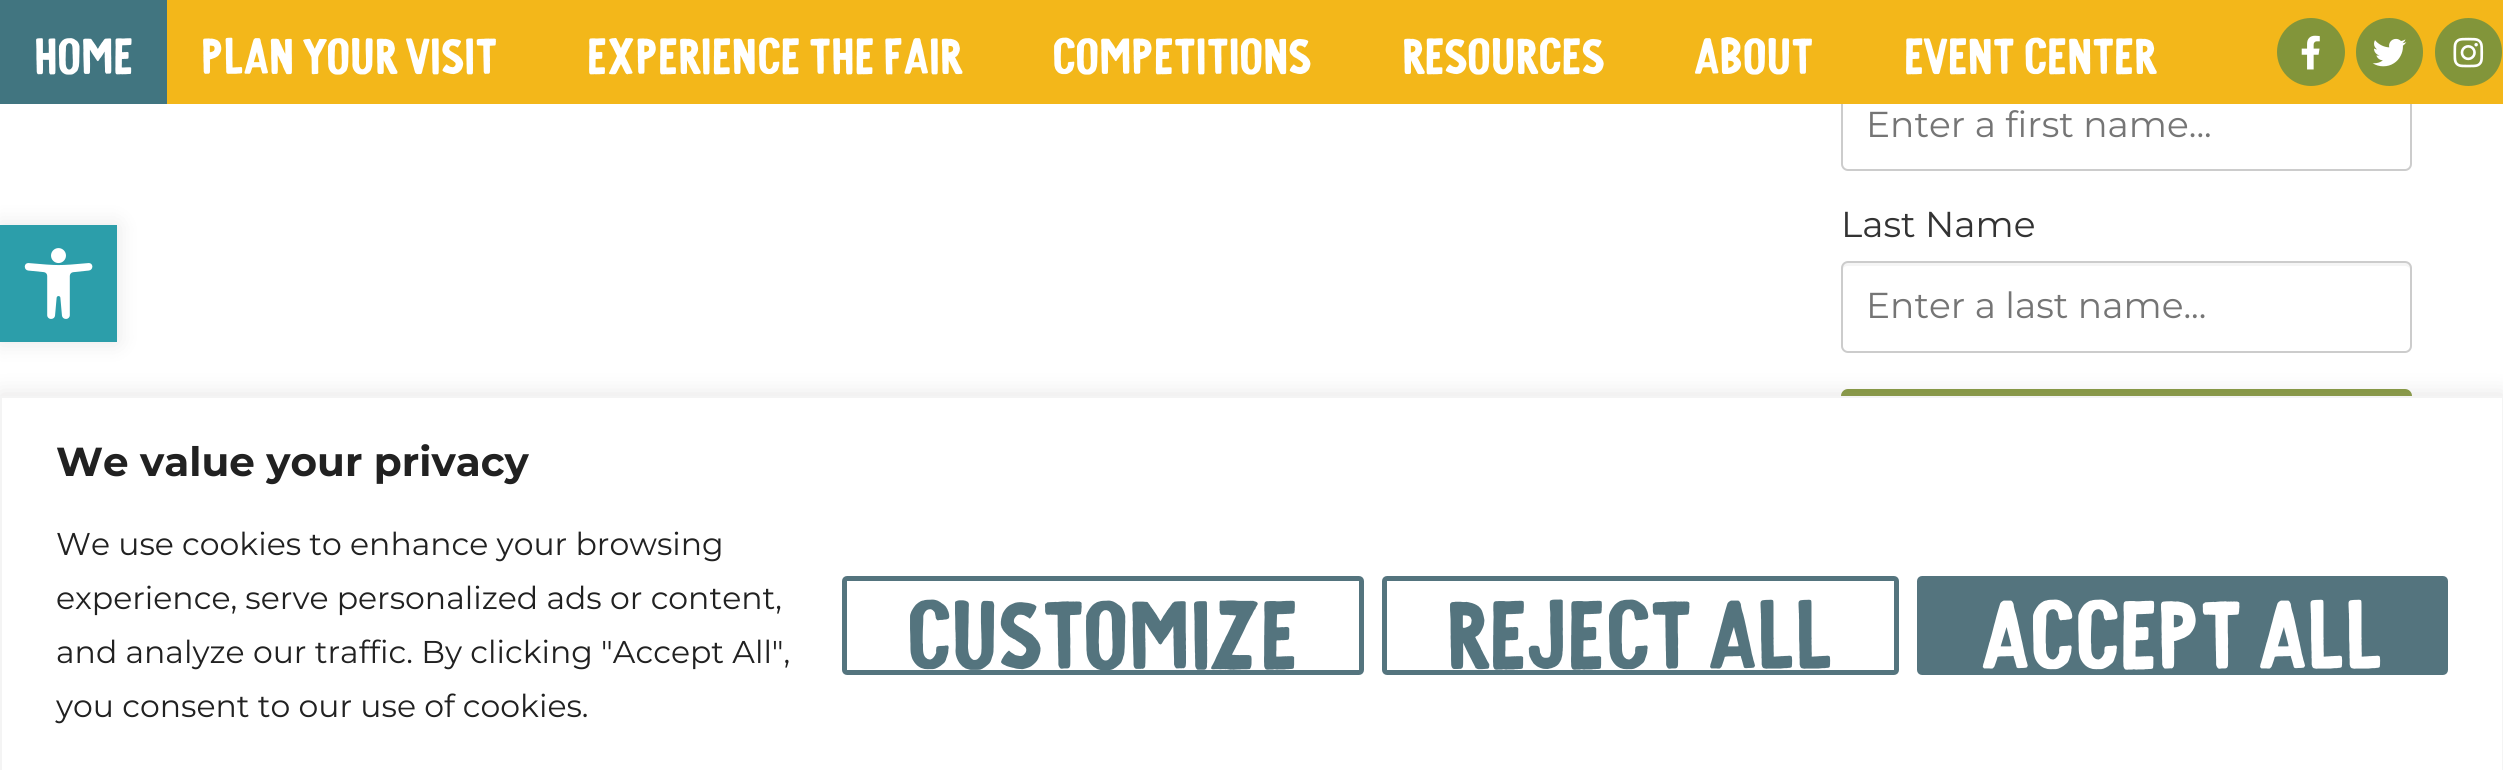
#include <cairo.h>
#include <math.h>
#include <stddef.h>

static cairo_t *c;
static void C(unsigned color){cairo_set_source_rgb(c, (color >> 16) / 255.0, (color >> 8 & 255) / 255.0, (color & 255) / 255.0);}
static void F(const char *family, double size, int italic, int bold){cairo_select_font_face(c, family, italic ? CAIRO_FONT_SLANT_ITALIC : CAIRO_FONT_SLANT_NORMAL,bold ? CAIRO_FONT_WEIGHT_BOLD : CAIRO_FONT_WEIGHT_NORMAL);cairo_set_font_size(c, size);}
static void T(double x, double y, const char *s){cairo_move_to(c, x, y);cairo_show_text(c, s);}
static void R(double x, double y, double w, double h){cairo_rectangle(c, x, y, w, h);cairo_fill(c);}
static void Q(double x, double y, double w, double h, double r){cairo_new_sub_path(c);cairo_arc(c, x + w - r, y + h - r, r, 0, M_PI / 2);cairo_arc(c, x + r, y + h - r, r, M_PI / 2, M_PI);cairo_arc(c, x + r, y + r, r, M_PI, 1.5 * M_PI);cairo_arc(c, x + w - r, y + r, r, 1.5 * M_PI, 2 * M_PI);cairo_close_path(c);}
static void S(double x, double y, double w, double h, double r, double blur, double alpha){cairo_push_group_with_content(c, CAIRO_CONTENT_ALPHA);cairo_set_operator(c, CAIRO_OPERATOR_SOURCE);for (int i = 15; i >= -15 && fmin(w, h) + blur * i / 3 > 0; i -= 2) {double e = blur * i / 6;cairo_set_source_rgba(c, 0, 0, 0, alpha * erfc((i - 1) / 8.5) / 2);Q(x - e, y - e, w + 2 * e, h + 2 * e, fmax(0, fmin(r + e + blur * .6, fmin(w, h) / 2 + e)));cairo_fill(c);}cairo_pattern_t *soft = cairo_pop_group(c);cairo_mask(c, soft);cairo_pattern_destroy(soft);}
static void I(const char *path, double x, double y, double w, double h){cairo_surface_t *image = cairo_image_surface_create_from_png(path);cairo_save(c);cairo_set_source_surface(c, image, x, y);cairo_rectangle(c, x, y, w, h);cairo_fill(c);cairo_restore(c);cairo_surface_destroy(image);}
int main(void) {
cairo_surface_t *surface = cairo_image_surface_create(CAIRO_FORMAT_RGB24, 2503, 770);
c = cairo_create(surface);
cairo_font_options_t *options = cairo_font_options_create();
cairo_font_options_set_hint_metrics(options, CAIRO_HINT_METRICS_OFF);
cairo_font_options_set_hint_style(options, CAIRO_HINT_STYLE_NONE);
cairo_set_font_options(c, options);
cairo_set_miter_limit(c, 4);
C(0xffffff);
cairo_paint(c);
Q(1842,82,569,88,6);
cairo_set_source_rgba(c,0,0,0,0.2);
cairo_stroke(c);
C(0xf3b71a);
R(167,0,2336,104);
C(0x417580);
R(0,0,167,104);
F("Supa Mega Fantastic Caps",75.5,0,0);
C(0xffffff);
T(34,74,"Home");
T(201,74,"Plan Your Visit");
T(587,74,"Experience the Fair");
T(1052,74,"Competitions");
T(1402,74,"Resources");
T(1694,74,"About");
T(1904,74,"Event Center");
C(0x82953a);
cairo_new_path(c);
cairo_arc(c,2311,52,34,0,2 * M_PI);
cairo_fill(c);
I("1.png",2301,35,19,35);
Q(2356,18,67,68,33.5);
cairo_fill(c);
I("2.png",2372,38,35,29);
Q(2435,18,67,68,33.5);
cairo_fill(c);
I("3.png",2453,37,31,31);
C(0x000000);
S(0,225,117,117,0,11,.1);
C(0x2c9eaa);
R(0,225,117,117);
I("4.png",24,248,69,71);
F("Montserrat",36,0,0);
C(0x757575);
T(1866,137,"Enter a first name...");
C(0x333333);
T(1841,237,"Last Name");
C(0xf5f5f5);
cairo_new_path(c);
cairo_move_to(c,1847,266);
cairo_line_to(c,2405,266);
cairo_curve_to(c,2408,266,2410,268,2410,270);
cairo_line_to(c,2410,268);
cairo_curve_to(c,2410,265,2408,263,2405,263);
cairo_line_to(c,1848,263);
cairo_curve_to(c,1845,263,1843,265,1843,268);
cairo_line_to(c,1843,270);
cairo_curve_to(c,1843,268,1845,266,1847,266);
cairo_close_path(c);
cairo_fill(c);
Q(1842,262,569,90,6);
cairo_set_source_rgba(c,0,0,0,0.2);
cairo_stroke(c);
C(0x757575);
T(1866,318,"Enter a last name...");
C(0x82953a);
Q(1841,389,571,261,7);
cairo_fill(c);
C(0xacabab);
S(0,394,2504,376,0,11,.3);
C(0xffffff);
cairo_rectangle(c,1,397,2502,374);
cairo_fill_preserve(c);
C(0xf4f4f4);
cairo_stroke(c);
F("Montserrat",40.5,0,1);
C(0x212121);
T(56,476,"We value your privacy");
F("Montserrat",31.5,0,0);
T(56,555,"We use cookies to enhance your browsing");
T(56,609,"experience, serve personalized ads or content,");
T(56,663,"and analyze our traffic. By clicking \"Accept All\",");
T(56,717,"you consent to our use of cookies.");
Q(844.5,578.5,517,94,2.5);
C(0x54747e);
cairo_set_line_width(c,5);
cairo_stroke(c);
F("Supa Mega Fantastic Caps",144,0,0);
T(906,669,"Customize");
Q(1384.5,578.5,512,94,2.5);
cairo_stroke(c);
T(1446,669,"Reject All");
Q(1919.5,578.5,526,94,2.5);
cairo_fill_preserve(c);
cairo_stroke(c);
C(0xffffff);
T(1981,669,"Accept All");
cairo_surface_write_to_png(surface, "o.png");
cairo_font_options_destroy(options);
cairo_destroy(c);
cairo_surface_destroy(surface);
return 0;
}
